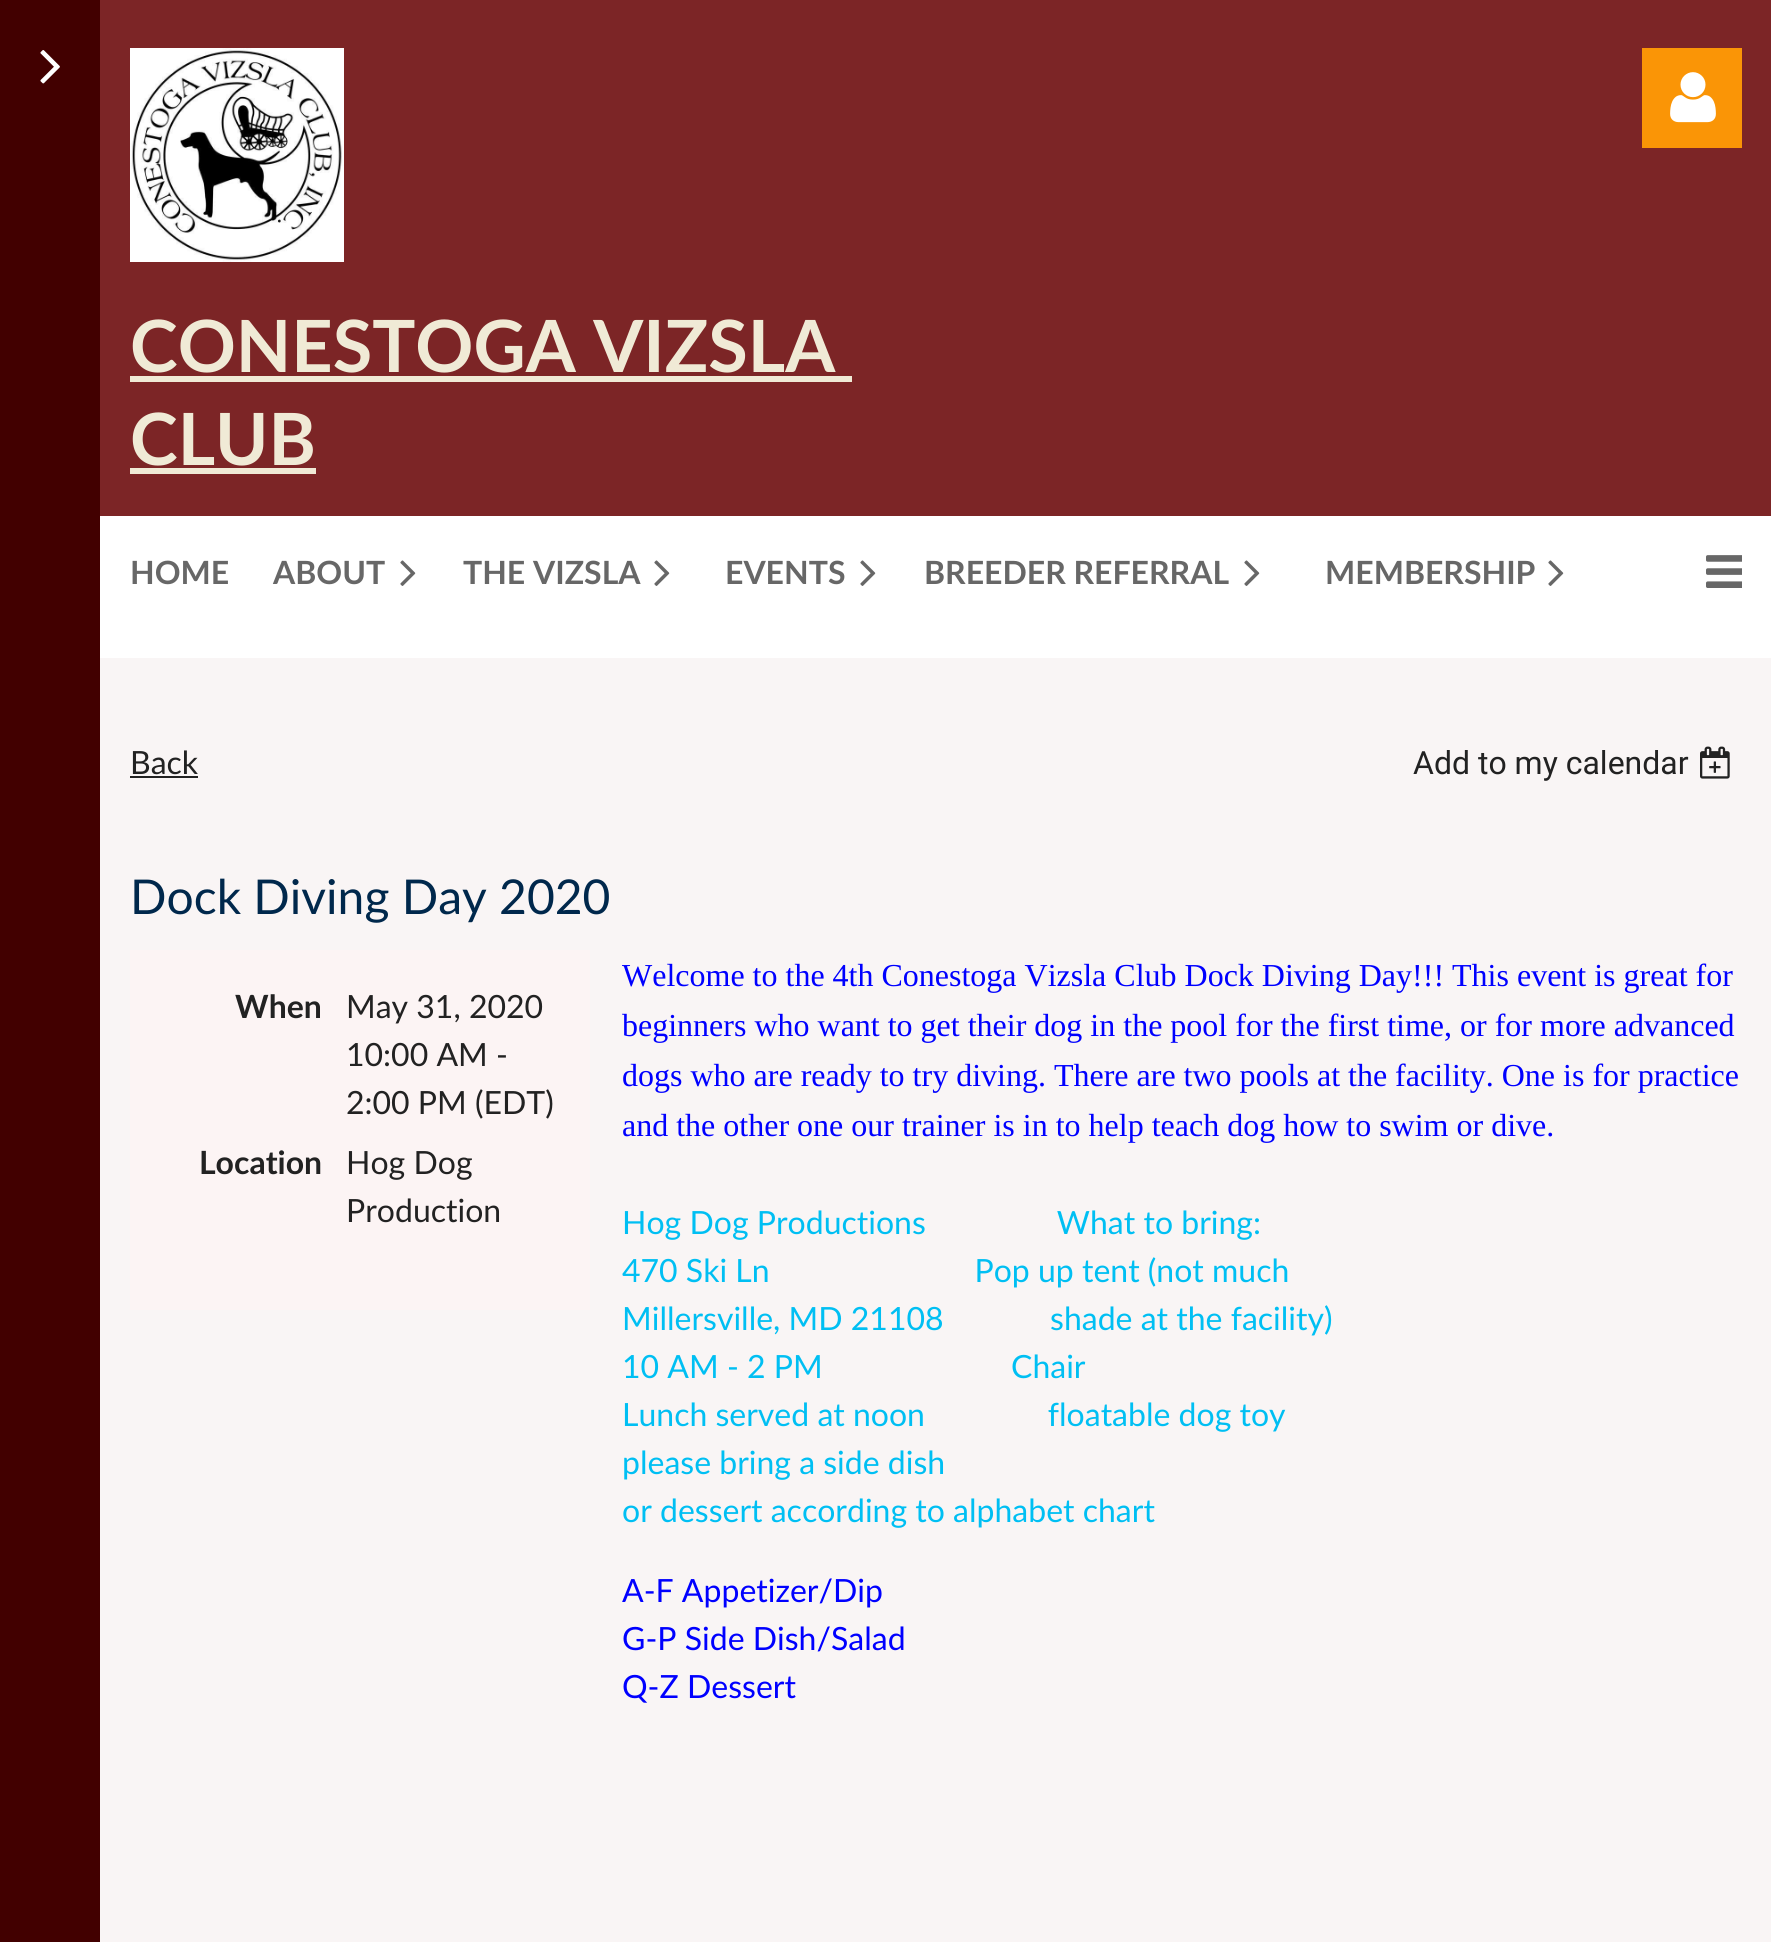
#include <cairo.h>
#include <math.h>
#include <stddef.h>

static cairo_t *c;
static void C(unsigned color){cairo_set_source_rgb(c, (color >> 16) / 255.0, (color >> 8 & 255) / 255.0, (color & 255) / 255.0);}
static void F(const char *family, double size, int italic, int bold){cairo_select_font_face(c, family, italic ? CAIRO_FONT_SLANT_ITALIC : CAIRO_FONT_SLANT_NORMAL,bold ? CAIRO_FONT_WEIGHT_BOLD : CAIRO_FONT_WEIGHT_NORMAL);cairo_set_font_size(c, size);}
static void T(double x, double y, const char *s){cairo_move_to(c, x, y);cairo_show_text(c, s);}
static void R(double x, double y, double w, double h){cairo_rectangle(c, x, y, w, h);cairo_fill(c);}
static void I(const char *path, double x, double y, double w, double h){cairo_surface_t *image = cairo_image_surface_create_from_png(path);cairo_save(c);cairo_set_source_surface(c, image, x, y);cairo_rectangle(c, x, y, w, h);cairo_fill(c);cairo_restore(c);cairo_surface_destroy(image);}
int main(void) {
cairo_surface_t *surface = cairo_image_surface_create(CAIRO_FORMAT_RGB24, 1771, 1942);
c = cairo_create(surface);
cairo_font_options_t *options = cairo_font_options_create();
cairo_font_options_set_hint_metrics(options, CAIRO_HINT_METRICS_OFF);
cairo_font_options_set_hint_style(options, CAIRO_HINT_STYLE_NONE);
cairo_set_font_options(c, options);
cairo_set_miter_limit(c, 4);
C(0xffffff);
cairo_paint(c);
C(0x420000);
R(0,0,100,1942);
I("1.png",40,50,20,34);
C(0x7c2526);
R(100,0,1671,516);
C(0xfa9506);
R(1642,48,100,100);
I("2.png",1670,72,46,51);
I("3.png",130,48,214,214);
F("Lato",72,0,1);
C(0xf0ead6);
T(130,372,"CONESTOGA VIZSLA");
R(130,376,722,6);
T(130,465,"CLUB");
R(130,468,186,6);
F("Lato",32,0,1);
C(0x676767);
T(130,584,"HOME");
T(273,584,"ABOUT");
I("4.png",400,560,16,26);
T(463,584,"THE VIZSLA");
I("4.png",654,560,16,26);
T(725,584,"EVENTS");
I("4.png",860,560,16,26);
T(924,584,"BREEDER REFERRAL");
I("4.png",1244,560,16,26);
T(1325,584,"MEMBERSHIP");
I("4.png",1548,560,16,26);
I("5.png",1706,555,36,33);
C(0xf9f5f5);
R(100,658,1671,1284);
F("Lato",32,0,0);
C(0x222222);
T(130,774,"Back");
R(130,776,68,2);
F("Roboto",32,0,0);
T(1413,774,"Add to my calendar");
I("6.png",1700,746,30,33);
F("Lato",48,0,0);
C(0x00284c);
T(130,914,"Dock Diving Day 2020");
C(0xfcf4f4);
R(130,950,460,360);
F("Lato",32,0,1);
C(0x222222);
T(235,1018,"When");
F("Lato",32,0,0);
T(346,1018,"May 31, 2020");
T(346,1066,"10:00 AM -");
T(346,1114,"2:00 PM (EDT)");
F("Lato",32,0,1);
T(199,1174,"Location");
F("Lato",32,0,0);
T(346,1174,"Hog Dog");
T(346,1222,"Production");
F("Liberation Serif",32,0,0);
C(0x0000ff);
T(622,986,"Welcome to the 4th Conestoga Vizsla Club Dock Diving Day!!! This event is great for");
T(622,1036,"beginners who want to get their dog in the pool for the first time, or for more advanced");
T(622,1086,"dogs who are ready to try diving. There are two pools at the facility. One is for practice");
T(622,1136,"and the other one our trainer is in to help teach dog how to swim or dive.");
F("Lato",32,0,0);
C(0x00bff3);
T(622,1234,"Hog Dog Productions                What to bring:");
T(622,1282,"470 Ski Ln                         Pop up tent (not much");
T(622,1330,"Millersville, MD 21108             shade at the facility)");
T(622,1378,"10 AM - 2 PM                       Chair");
T(622,1426,"Lunch served at noon               floatable dog toy");
T(622,1474,"please bring a side dish");
T(622,1522,"or dessert according to alphabet chart");
C(0x0000ff);
T(622,1602,"A-F Appetizer/Dip");
T(622,1650,"G-P Side Dish/Salad");
T(622,1698,"Q-Z Dessert");
cairo_surface_write_to_png(surface, "o.png");
cairo_font_options_destroy(options);
cairo_destroy(c);
cairo_surface_destroy(surface);
return 0;
}
